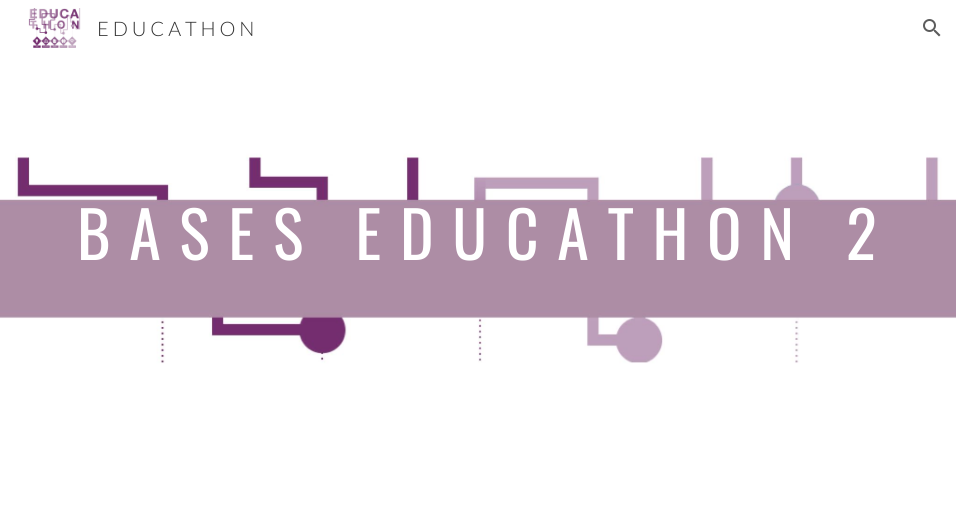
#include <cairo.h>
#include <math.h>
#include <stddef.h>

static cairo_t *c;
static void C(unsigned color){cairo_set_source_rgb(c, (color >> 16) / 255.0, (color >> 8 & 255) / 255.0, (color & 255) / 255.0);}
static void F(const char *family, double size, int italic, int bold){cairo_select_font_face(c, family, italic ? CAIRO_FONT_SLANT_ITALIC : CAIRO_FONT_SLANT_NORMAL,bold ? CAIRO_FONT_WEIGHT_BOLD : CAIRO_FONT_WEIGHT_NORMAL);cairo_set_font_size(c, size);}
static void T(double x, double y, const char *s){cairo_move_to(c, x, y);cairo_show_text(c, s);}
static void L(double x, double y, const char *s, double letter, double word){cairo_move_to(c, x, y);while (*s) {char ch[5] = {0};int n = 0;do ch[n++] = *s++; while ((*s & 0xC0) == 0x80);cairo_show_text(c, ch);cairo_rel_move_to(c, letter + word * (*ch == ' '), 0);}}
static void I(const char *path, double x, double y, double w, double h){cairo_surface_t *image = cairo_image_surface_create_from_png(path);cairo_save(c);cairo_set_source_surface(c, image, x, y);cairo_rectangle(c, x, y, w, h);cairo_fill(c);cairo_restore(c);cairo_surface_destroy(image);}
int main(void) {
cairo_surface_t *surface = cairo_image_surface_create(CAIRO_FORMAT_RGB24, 956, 530);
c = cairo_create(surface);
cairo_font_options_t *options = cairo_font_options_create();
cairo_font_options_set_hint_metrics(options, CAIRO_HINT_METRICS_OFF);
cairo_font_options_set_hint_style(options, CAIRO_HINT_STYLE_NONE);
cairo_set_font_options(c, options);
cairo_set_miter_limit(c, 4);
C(0xffffff);
cairo_paint(c);
I("3.png",0,0,956,520);
I("1.png",28,8,53,40);
F("Lato Light",20,0,0);
C(0x333333);
T(97,36,"E D U C A T H O N");
I("2.png",923,19,18,18);
F("Oswald",64,0,0);
C(0xffffff);
L(77,260,"B A S E S   E D U C A T H O N   2",2,0);
cairo_surface_write_to_png(surface, "o.png");
cairo_font_options_destroy(options);
cairo_destroy(c);
cairo_surface_destroy(surface);
return 0;
}
